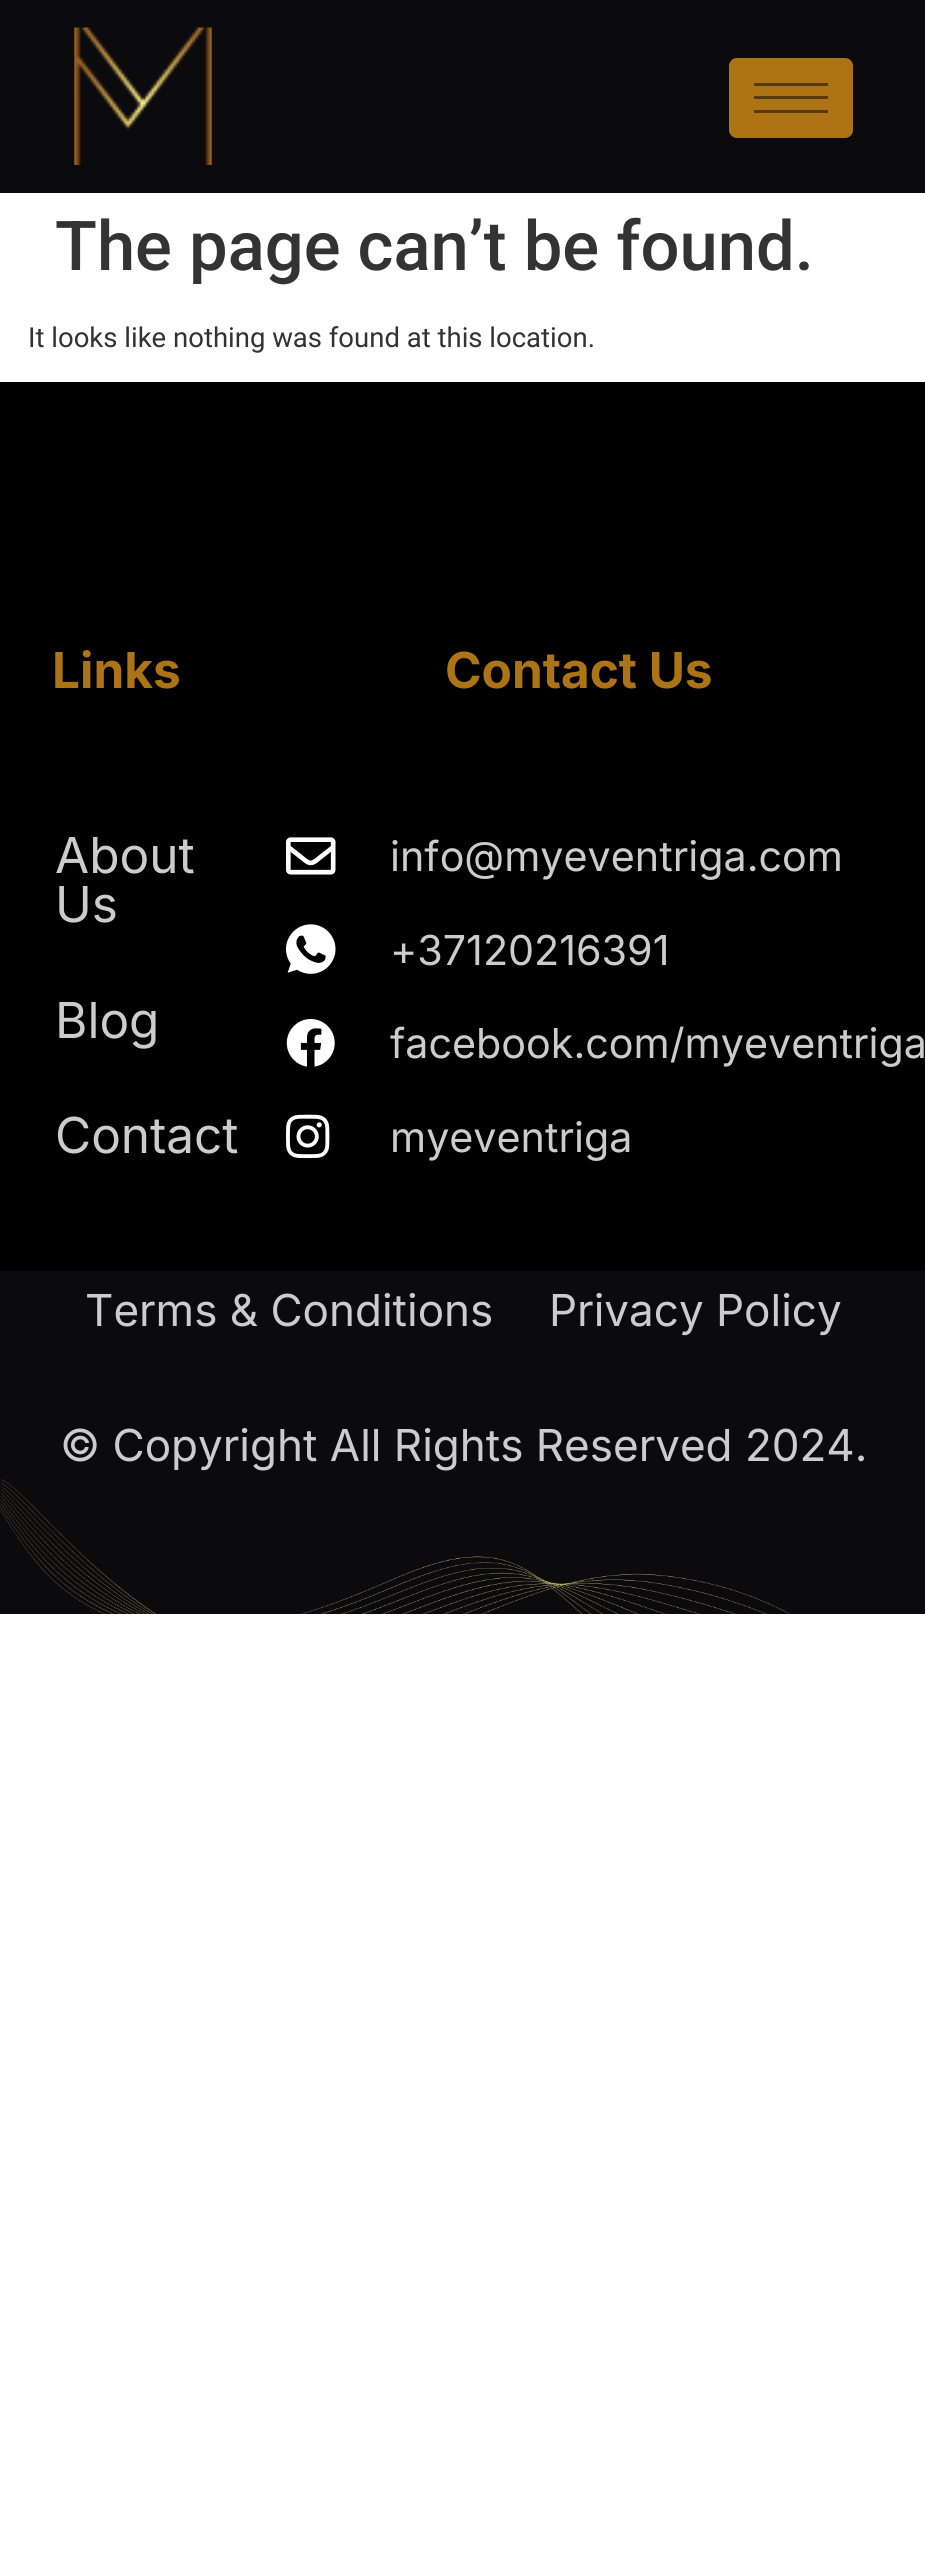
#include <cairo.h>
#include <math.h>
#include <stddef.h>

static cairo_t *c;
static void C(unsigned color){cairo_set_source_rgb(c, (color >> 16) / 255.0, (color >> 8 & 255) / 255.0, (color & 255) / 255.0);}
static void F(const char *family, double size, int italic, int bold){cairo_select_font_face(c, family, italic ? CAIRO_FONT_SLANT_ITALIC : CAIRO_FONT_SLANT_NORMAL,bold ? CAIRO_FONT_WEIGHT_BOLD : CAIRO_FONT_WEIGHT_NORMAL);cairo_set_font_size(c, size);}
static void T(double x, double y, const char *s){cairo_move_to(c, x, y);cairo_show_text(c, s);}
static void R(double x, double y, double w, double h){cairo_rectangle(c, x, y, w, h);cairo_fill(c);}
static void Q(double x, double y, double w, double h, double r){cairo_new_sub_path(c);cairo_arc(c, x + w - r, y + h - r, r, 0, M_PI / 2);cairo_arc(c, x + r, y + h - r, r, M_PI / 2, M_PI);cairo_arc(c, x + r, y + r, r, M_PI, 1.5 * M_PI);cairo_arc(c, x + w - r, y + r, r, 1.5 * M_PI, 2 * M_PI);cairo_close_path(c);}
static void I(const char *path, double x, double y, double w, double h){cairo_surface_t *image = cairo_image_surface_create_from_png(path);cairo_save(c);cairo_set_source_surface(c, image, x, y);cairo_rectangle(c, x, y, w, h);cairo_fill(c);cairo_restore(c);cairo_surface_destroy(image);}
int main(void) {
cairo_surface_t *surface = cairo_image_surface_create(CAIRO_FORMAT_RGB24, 925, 2570);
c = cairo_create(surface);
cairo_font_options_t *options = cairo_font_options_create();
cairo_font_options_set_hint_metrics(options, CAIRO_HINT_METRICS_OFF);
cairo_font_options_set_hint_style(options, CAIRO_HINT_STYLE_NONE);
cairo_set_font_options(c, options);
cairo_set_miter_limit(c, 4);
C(0xffffff);
cairo_paint(c);
C(0x0b0b0d);
R(0,0,925,193);
I("1.png",74,27,138,138);
C(0xad7416);
Q(730.5,59.5,121,77,6.5);
cairo_fill_preserve(c);
cairo_set_line_width(c,3);
cairo_stroke(c);
C(0x573a0b);
R(754,83,74,3);
R(754,96,74,3);
R(754,110,74,3);
F("Roboto Medium",68.75,0,0);
C(0x333333);
T(55,270,"The page can’t be found.");
F("Roboto",27.5,0,0);
T(28,347,"It looks like nothing was found at this location.");
C(0x000000);
R(0,382,925,889);
F("Inter",49.5,0,1);
C(0xad7416);
T(52,688,"Links");
F("Inter",49.5,0,0);
C(0xcccccc);
T(55,873,"About");
T(55,922,"Us");
T(55,1038,"Blog");
T(55,1153,"Contact");
F("Inter",49.5,0,1);
C(0xad7416);
T(445,688,"Contact Us");
I("2.png",286,837,50,38);
F("Inter",41.25,0,0);
C(0xcccccc);
T(390,871,"info@myeventriga.com");
I("3.png",286,924,50,50);
T(390,965,"+37120216391");
I("4.png",286,1019,49,48);
T(390,1058,"facebook.com/myeventriga");
I("5.png",286,1114,44,45);
T(390,1152,"myeventriga");
C(0x0b0b0d);
R(0,1271,925,343);
F("Inter",44,0,0);
C(0xcccccc);
T(85,1326,"Terms & Conditions");
T(549,1326,"Privacy Policy");
T(60,1461,"© Copyright All Rights Reserved 2024.");
I("6.png",0,1479,791,136);
cairo_surface_write_to_png(surface, "o.png");
cairo_font_options_destroy(options);
cairo_destroy(c);
cairo_surface_destroy(surface);
return 0;
}
